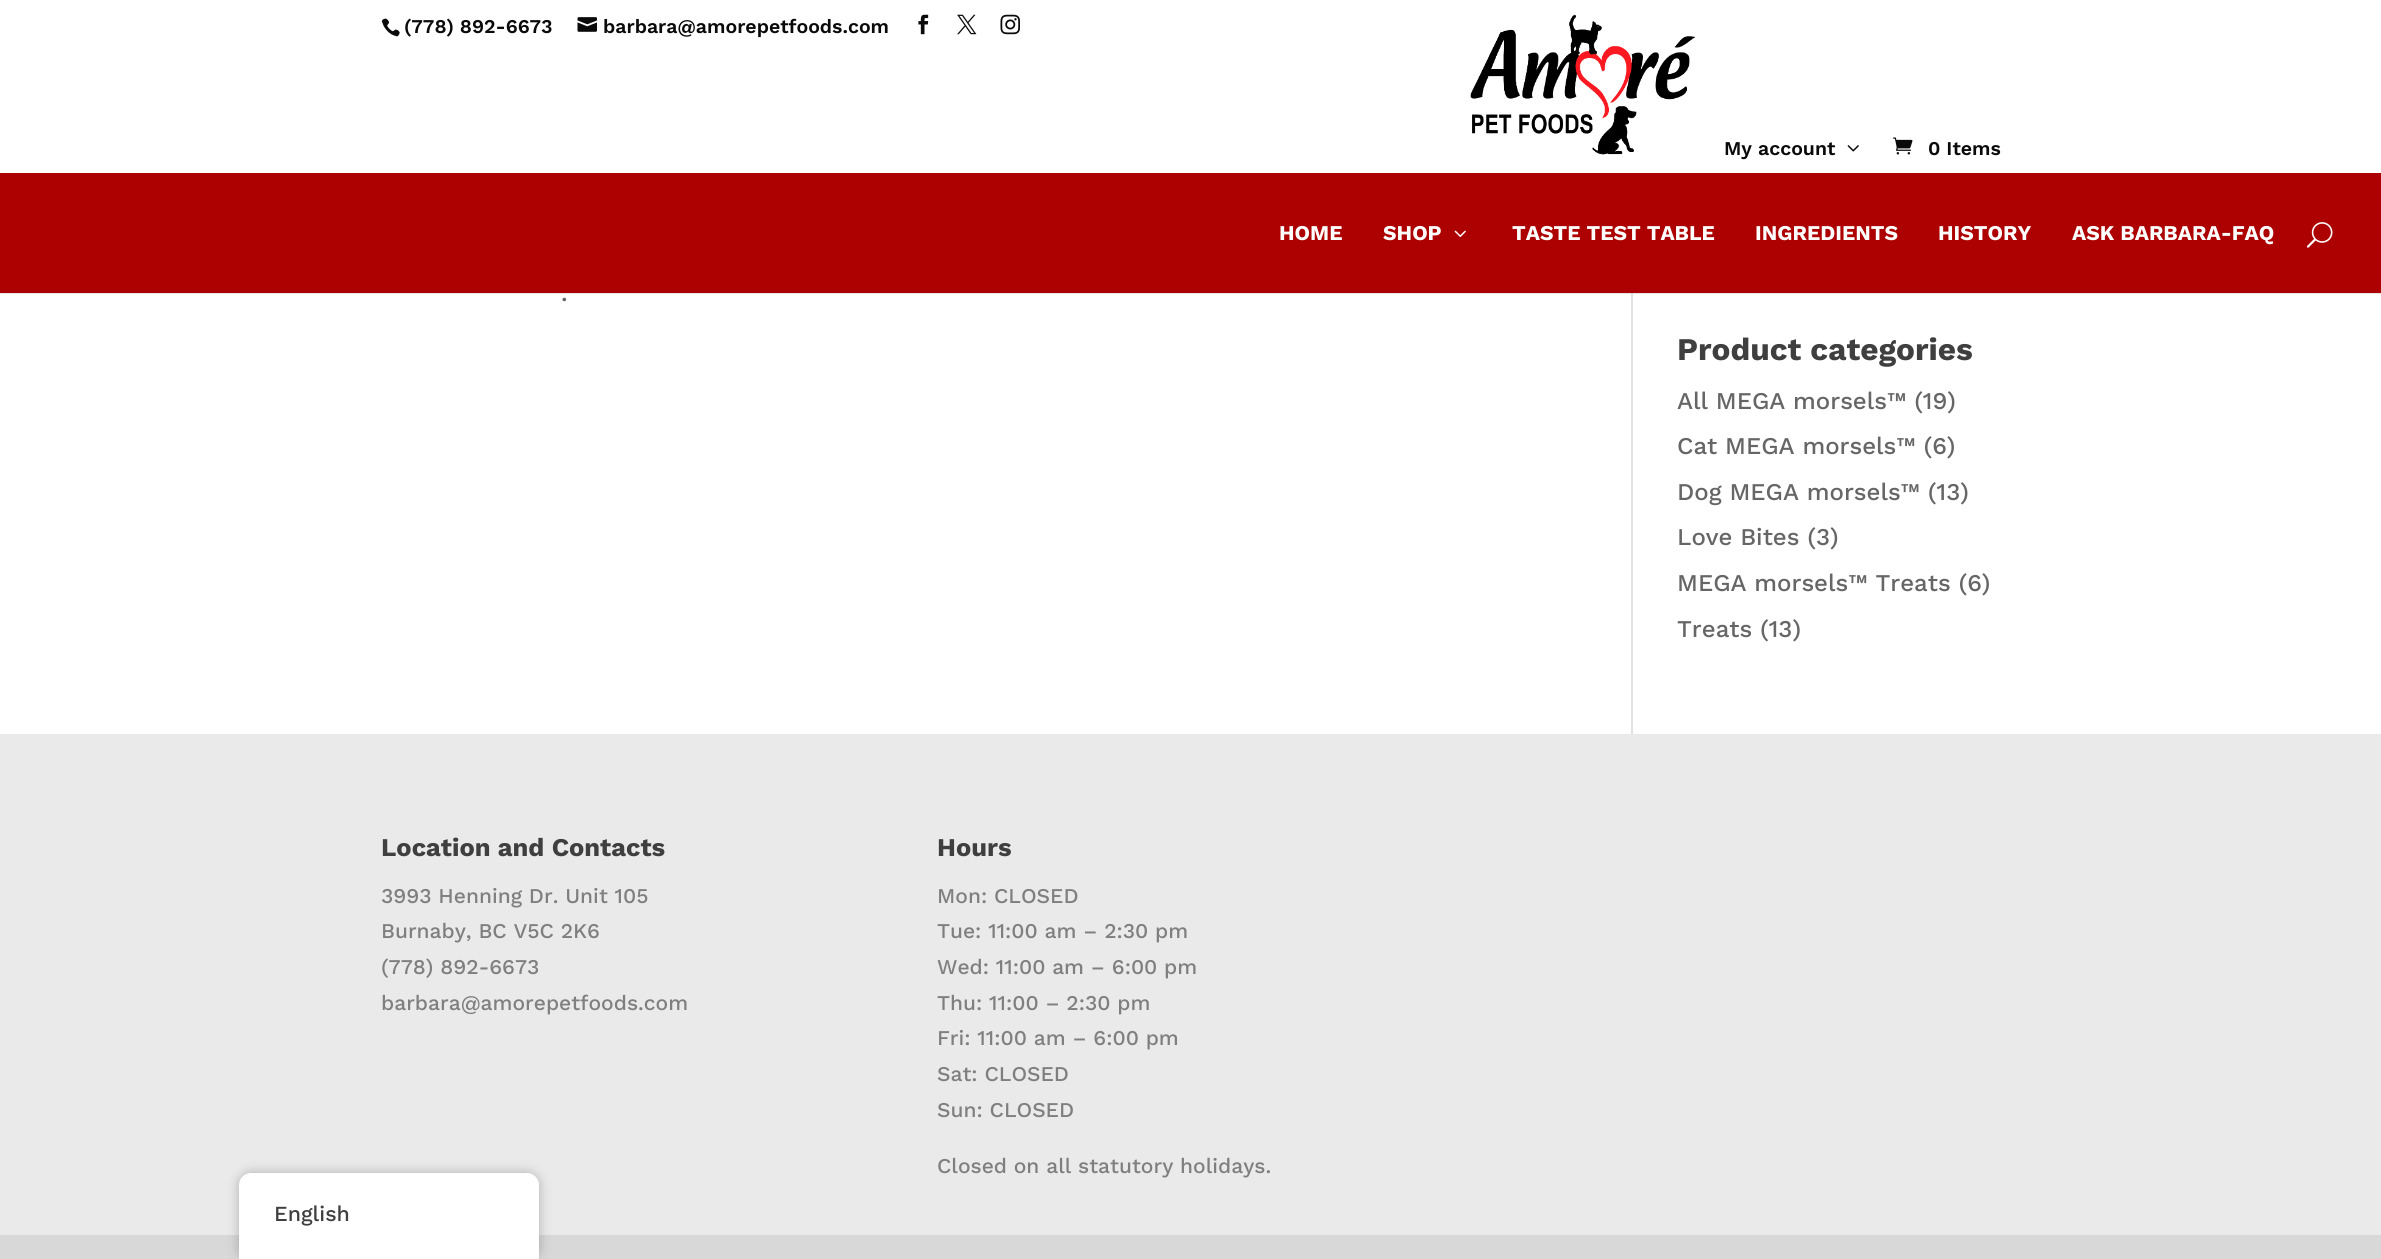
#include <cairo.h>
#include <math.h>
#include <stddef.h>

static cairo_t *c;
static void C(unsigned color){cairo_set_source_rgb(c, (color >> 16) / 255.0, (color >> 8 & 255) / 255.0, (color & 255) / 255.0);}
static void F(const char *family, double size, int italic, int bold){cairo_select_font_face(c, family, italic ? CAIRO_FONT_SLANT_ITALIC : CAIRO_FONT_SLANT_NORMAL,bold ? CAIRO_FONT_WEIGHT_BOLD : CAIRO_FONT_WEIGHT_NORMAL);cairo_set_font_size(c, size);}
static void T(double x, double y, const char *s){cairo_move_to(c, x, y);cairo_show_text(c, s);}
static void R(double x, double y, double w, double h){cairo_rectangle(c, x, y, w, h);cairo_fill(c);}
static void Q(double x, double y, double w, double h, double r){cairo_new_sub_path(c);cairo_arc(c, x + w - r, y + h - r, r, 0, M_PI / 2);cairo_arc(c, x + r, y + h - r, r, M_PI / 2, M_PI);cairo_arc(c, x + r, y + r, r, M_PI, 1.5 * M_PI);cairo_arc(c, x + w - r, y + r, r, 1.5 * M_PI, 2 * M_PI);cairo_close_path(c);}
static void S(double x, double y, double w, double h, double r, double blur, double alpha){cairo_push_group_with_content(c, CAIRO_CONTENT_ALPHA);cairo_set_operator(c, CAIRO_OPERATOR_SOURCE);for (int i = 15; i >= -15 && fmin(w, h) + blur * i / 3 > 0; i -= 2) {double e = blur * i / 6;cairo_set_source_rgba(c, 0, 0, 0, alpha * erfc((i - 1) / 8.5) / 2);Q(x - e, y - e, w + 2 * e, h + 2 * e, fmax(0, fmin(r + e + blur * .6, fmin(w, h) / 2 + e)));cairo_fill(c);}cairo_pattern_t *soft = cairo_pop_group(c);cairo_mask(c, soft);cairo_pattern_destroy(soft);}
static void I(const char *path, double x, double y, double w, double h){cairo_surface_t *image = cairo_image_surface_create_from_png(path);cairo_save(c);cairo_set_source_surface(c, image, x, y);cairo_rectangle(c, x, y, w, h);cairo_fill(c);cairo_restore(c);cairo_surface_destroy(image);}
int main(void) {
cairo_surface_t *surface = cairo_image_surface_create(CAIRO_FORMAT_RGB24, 2381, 1259);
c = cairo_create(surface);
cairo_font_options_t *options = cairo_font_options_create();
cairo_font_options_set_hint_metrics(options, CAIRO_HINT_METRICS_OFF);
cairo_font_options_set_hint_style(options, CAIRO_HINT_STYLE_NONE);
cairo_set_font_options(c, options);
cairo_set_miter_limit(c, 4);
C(0xffffff);
cairo_paint(c);
I("1.png",381,18,19,19);
F("Work Sans SemiBold",19.5,0,0);
C(0x0a0a0a);
T(404,33,"(778) 892-6673");
I("2.png",577,17,20,15);
T(603,33,"barbara@amorepetfoods.com");
I("3.png",918,14,11,21);
I("4.png",957,14,20,21);
I("5.png",1000,14,20,21);
I("6.png",1470,14,226,141);
T(1724,155,"My account");
I("7.png",1847,145,12,7);
I("8.png",1893,137,20,18);
T(1928,155,"0 Items");
C(0xe2e2e2);
R(1631,293,2,441);
cairo_set_source_rgba(c,0,0,0,0.1);
R(0,293,2381,1);
C(0xad0000);
R(0,173,2381,120);
F("Work Sans",21,0,1);
C(0xffffff);
T(1279,240,"HOME");
T(1383,240,"SHOP");
I("9.png",1454,230,12,7);
T(1512,240,"TASTE TEST TABLE");
T(1755,240,"INGREDIENTS");
T(1938,240,"HISTORY");
T(2072,240,"ASK BARBARA-FAQ");
I("10.png",2306,222,27,26);
F("Work Sans Medium",24,0,0);
C(0x666666);
T(561,301,".");
F("Work Sans",31.5,0,1);
C(0x3f3f3f);
T(1677,360,"Product categories");
F("Work Sans Medium",24,0,0);
C(0x666666);
T(1677,409,"All MEGA morsels™ (19)");
T(1677,454,"Cat MEGA morsels™ (6)");
T(1677,500,"Dog MEGA morsels™ (13)");
T(1677,545,"Love Bites (3)");
T(1677,591,"MEGA morsels™ Treats (6)");
T(1677,637,"Treats (13)");
C(0xeaeaea);
R(0,734,2381,501);
F("Work Sans",25.5,0,1);
C(0x3f3f3f);
T(381,856,"Location and Contacts");
F("Work Sans Medium",21,0,0);
C(0x7f7f7f);
T(381,903,"3993 Henning Dr. Unit 105");
T(381,938,"Burnaby, BC V5C 2K6");
T(381,974,"(778) 892-6673");
T(381,1010,"barbara@amorepetfoods.com");
F("Work Sans",25.5,0,1);
C(0x3f3f3f);
T(937,856,"Hours");
F("Work Sans Medium",21,0,0);
C(0x7f7f7f);
T(937,903,"Mon: CLOSED");
T(937,938,"Tue: 11:00 am – 2:30 pm");
T(937,974,"Wed: 11:00 am – 6:00 pm");
T(937,1010,"Thu: 11:00 – 2:30 pm");
T(937,1045,"Fri: 11:00 am – 6:00 pm");
T(937,1081,"Sat: CLOSED");
T(937,1117,"Sun: CLOSED");
T(937,1173,"Closed on all statutory holidays.");
C(0xd8d8d8);
R(0,1235,2381,24);
C(0x000000);
S(239,1173,300,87,12,6,.25);
C(0xffffff);
cairo_new_path(c);
cairo_move_to(c,251,1173);
cairo_line_to(c,527,1173);
cairo_curve_to(c,533.5,1173,539,1178.5,539,1185);
cairo_line_to(c,539,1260);
cairo_line_to(c,239,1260);
cairo_line_to(c,239,1185);
cairo_curve_to(c,239,1178.5,244.5,1173,251,1173);
cairo_close_path(c);
cairo_fill(c);
F("Work Sans Medium",21.5,0,0);
C(0x3f3f3f);
T(274,1221,"English");
cairo_surface_write_to_png(surface, "o.png");
cairo_font_options_destroy(options);
cairo_destroy(c);
cairo_surface_destroy(surface);
return 0;
}
